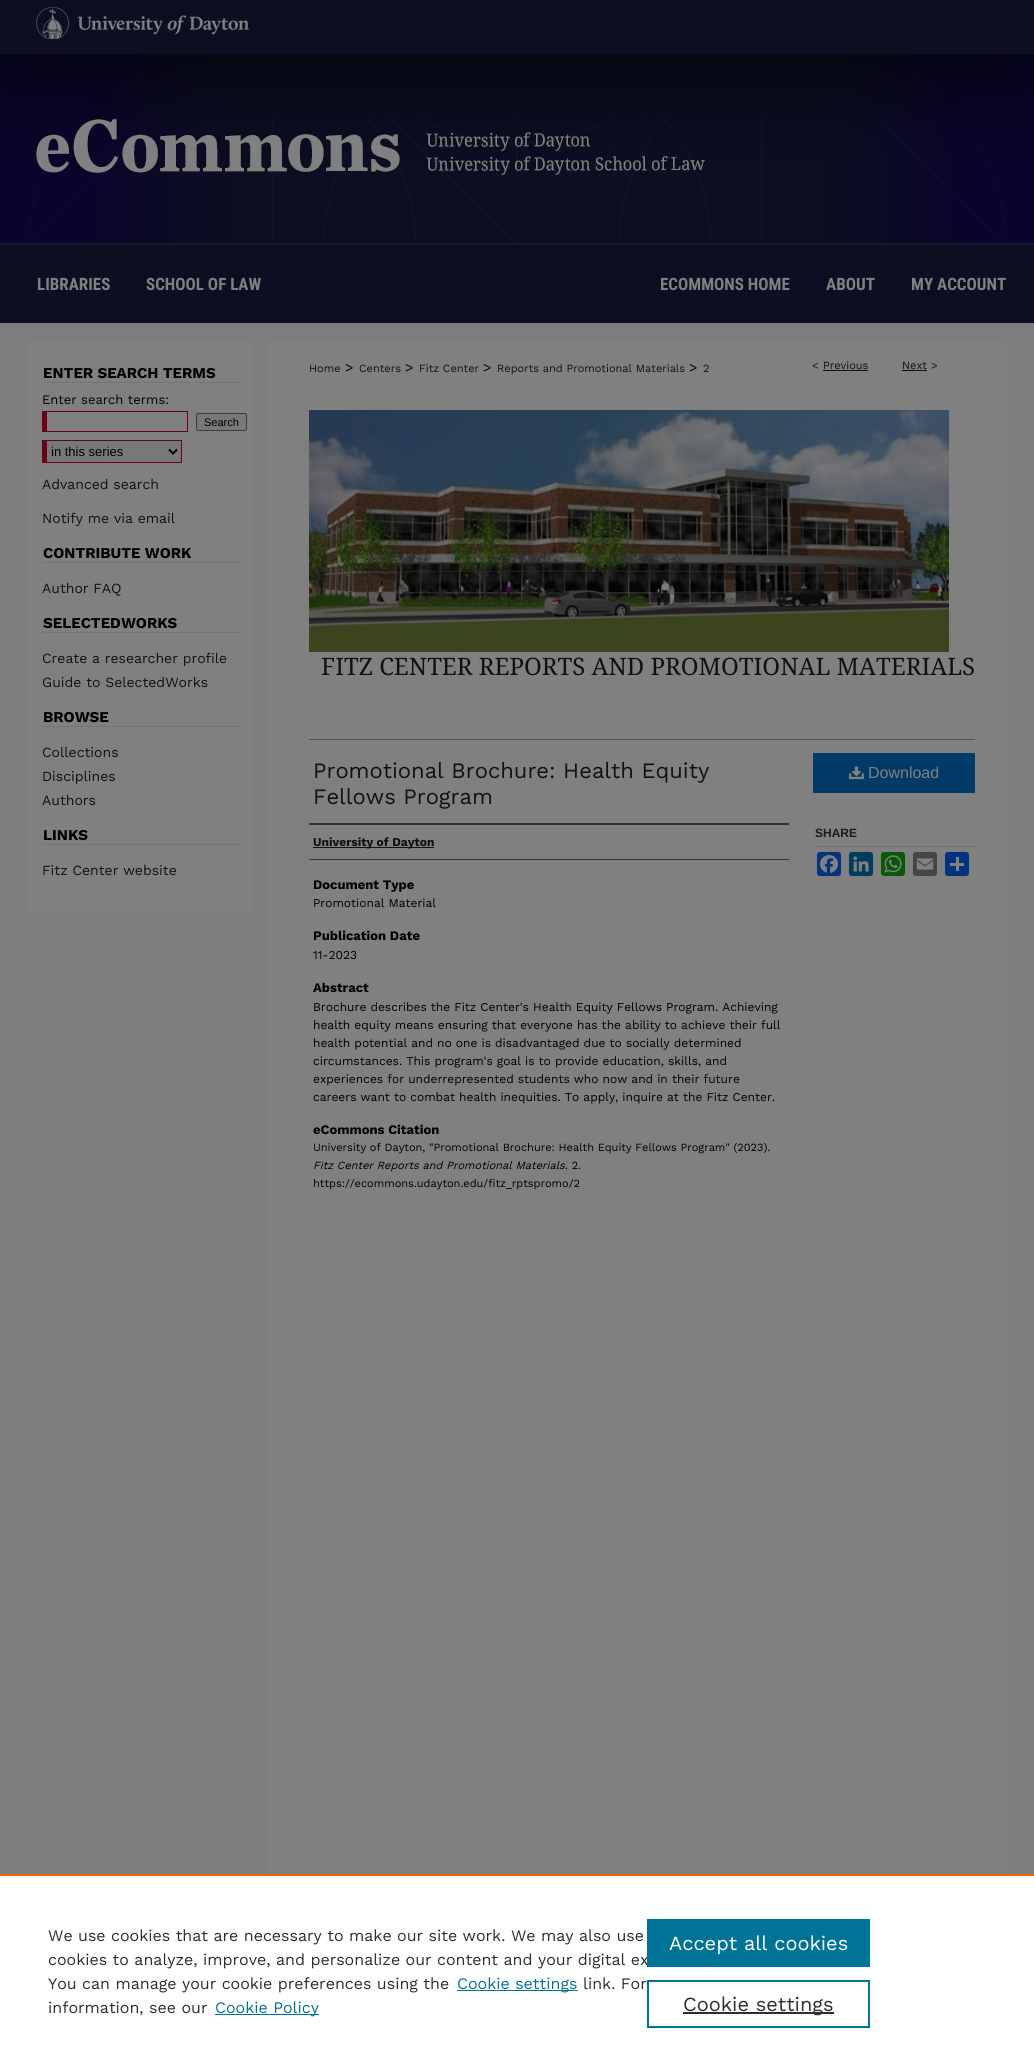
#include <cairo.h>
#include <math.h>
#include <stddef.h>

static cairo_t *c;
static void C(unsigned color){cairo_set_source_rgb(c, (color >> 16) / 255.0, (color >> 8 & 255) / 255.0, (color & 255) / 255.0);}
static void F(const char *family, double size, int italic, int bold){cairo_select_font_face(c, family, italic ? CAIRO_FONT_SLANT_ITALIC : CAIRO_FONT_SLANT_NORMAL,bold ? CAIRO_FONT_WEIGHT_BOLD : CAIRO_FONT_WEIGHT_NORMAL);cairo_set_font_size(c, size);}
static void T(double x, double y, const char *s){cairo_move_to(c, x, y);cairo_show_text(c, s);}
static void R(double x, double y, double w, double h){cairo_rectangle(c, x, y, w, h);cairo_fill(c);}
static void Q(double x, double y, double w, double h, double r){cairo_new_sub_path(c);cairo_arc(c, x + w - r, y + h - r, r, 0, M_PI / 2);cairo_arc(c, x + r, y + h - r, r, M_PI / 2, M_PI);cairo_arc(c, x + r, y + r, r, M_PI, 1.5 * M_PI);cairo_arc(c, x + w - r, y + r, r, 1.5 * M_PI, 2 * M_PI);cairo_close_path(c);}
static void I(const char *path, double x, double y, double w, double h){cairo_surface_t *image = cairo_image_surface_create_from_png(path);cairo_save(c);cairo_set_source_surface(c, image, x, y);cairo_rectangle(c, x, y, w, h);cairo_fill(c);cairo_restore(c);cairo_surface_destroy(image);}
int main(void) {
cairo_surface_t *surface = cairo_image_surface_create(CAIRO_FORMAT_RGB24, 1034, 2068);
c = cairo_create(surface);
cairo_font_options_t *options = cairo_font_options_create();
cairo_font_options_set_hint_metrics(options, CAIRO_HINT_METRICS_OFF);
cairo_font_options_set_hint_style(options, CAIRO_HINT_STYLE_NONE);
cairo_set_font_options(c, options);
cairo_set_miter_limit(c, 4);
C(0x7d7d7d);
cairo_paint(c);
I("1.png",0,0,1034,323);
I("2.png",27,7,980,238);
F("Roboto Condensed",17,0,1);
C(0x808080);
T(37,290,"LIBRARIES");
T(146,290,"SCHOOL OF LAW");
T(660,290,"ECOMMONS HOME");
T(826,290,"ABOUT");
T(911,290,"MY ACCOUNT");
R(267,342,740,1532);
R(27,342,227,570);
C(0x757575);
R(43,382,200,1);
F("Work Sans",15,0,1);
C(0x000000);
T(43,378,"ENTER SEARCH TERMS");
F("Work Sans",13,0,0);
T(42,404,"Enter search terms:");
C(0x6c001b);
R(42,411,146,1);
R(187,411,1,21);
R(42,431,146,1);
R(42,411,5,21);
C(0x787878);
Q(196.5,413.5,50,17,1.5);
cairo_fill_preserve(c);
C(0x3b3b3b);
cairo_set_line_width(c,1);
cairo_stroke(c);
F("Liberation Sans",11,0,0);
C(0x000000);
T(204,426,"Search");
C(0x787878);
R(47,441,134,21);
C(0x6c001b);
R(42,440,140,1);
R(181,440,1,23);
R(42,462,140,1);
R(42,440,5,23);
cairo_new_path(c);
cairo_move_to(c,169,449.5);
cairo_line_to(c,173,453.5);
cairo_line_to(c,177,449.5);
C(0x000000);
cairo_set_line_width(c,2);
cairo_stroke(c);
F("Liberation Sans",13,0,0);
T(51,456,"in this series");
F("Work Sans",14,0,0);
C(0x111111);
T(42,489,"Advanced search");
T(42,523,"Notify me via email");
C(0x757575);
R(43,562,200,1);
F("Work Sans",15,0,1);
C(0x000000);
T(43,558,"CONTRIBUTE WORK");
F("Work Sans",14,0,0);
C(0x111111);
T(42,593,"Author FAQ");
C(0x757575);
R(43,632,200,1);
F("Work Sans",15,0,1);
C(0x000000);
T(43,628,"SELECTEDWORKS");
F("Work Sans",14,0,0);
C(0x111111);
T(42,663,"Create a researcher profile");
T(42,687,"Guide to SelectedWorks");
C(0x757575);
R(43,726,200,1);
F("Work Sans",15,0,1);
C(0x000000);
T(43,722,"BROWSE");
F("Work Sans",14,0,0);
C(0x111111);
T(42,757,"Collections");
T(42,781,"Disciplines");
T(42,805,"Authors");
C(0x757575);
R(43,844,200,1);
F("Work Sans",15,0,1);
C(0x000000);
T(43,840,"LINKS");
F("Work Sans",14,0,0);
C(0x111111);
T(42,875,"Fitz Center website");
F("Work Sans",11,0,0);
T(309,372,"Home");
F("Work Sans",14,0,0);
C(0x000000);
T(345,372,">");
F("Work Sans",11,0,0);
C(0x111111);
T(359,372,"Centers");
F("Work Sans",14,0,0);
C(0x000000);
T(405,372,">");
F("Work Sans",11,0,0);
C(0x111111);
T(419,372,"Fitz Center");
F("Work Sans",14,0,0);
C(0x000000);
T(483,372,">");
F("Work Sans",11,0,0);
C(0x111111);
T(497,372,"Reports and Promotional Materials");
F("Work Sans",14,0,0);
C(0x000000);
T(689,372,">");
F("Work Sans",11,0,0);
C(0x111111);
T(703,372,"2");
T(812,369,"<");
T(823,369,"Previous");
C(0x121212);
R(823,370,45,1);
C(0x111111);
T(902,369,"Next");
C(0x121212);
R(902,370,25,1);
C(0x111111);
T(931,369,">");
I("3.png",309,410,640,242);
F("Noto Serif",24,0,0);
T(321,675,"FITZ CENTER REPORTS AND PROMOTIONAL MATERIALS");
C(0x555555);
R(309,739,666,1);
F("Work Sans",22,0,0);
C(0x111111);
T(313,778,"Promotional Brochure: Health Equity");
T(313,804,"Fellows Program");
C(0x333333);
R(309,823,480,2);
R(309,859,480,1);
C(0x121212);
R(313,847,121,1);
F("Work Sans",12,0,1);
C(0x111111);
T(313,846,"University of Dayton");
F("Work Sans",13,0,1);
C(0x000000);
T(313,889,"Document Type");
F("Work Sans",12,0,0);
T(313,907,"Promotional Material");
F("Work Sans",13,0,1);
T(313,940,"Publication Date");
F("Work Sans",12,0,0);
T(313,959,"11-2023");
F("Work Sans",13,0,1);
T(313,992,"Abstract");
F("Work Sans",12,0,0);
T(313,1011,"Brochure describes the Fitz Center's Health Equity Fellows Program. Achieving");
T(313,1029,"health equity means ensuring that everyone has the ability to achieve their full");
T(313,1047,"health potential and no one is disadvantaged due to socially determined");
T(313,1065,"circumstances. This program's goal is to provide education, skills, and");
T(313,1083,"experiences for underrepresented students who now and in their future");
T(313,1101,"careers want to combat health inequities. To apply, inquire at the Fitz Center.");
F("Work Sans",13,0,1);
T(313,1134,"eCommons Citation");
F("Work Sans",11,0,0);
T(313,1151,"University of Dayton, \"Promotional Brochure: Health Equity Fellows Program\" (2023).");
F("Work Sans",11,1,0);
T(313,1169,"Fitz Center Reports and Promotional Materials");
F("Work Sans",11,0,0);
T(565,1169,". 2.");
T(313,1187,"https://ecommons.udayton.edu/fitz_rptspromo/2");
C(0x003a66);
R(813,753,162,40);
I("4.png",849,766,15,14);
F("Liberation Sans",16,0,0);
C(0x808080);
T(868,778,"Download");
C(0x6f6f6f);
R(815,846,160,1);
F("Liberation Sans",12,0,1);
C(0x1a1a1a);
T(815,837,"SHARE");
C(0x043380);
Q(817,852,24,24,3);
cairo_fill(c);
I("5.png",820,855,18,18);
C(0x003e5b);
Q(849,852,24,24,3);
cairo_fill(c);
I("6.png",853,856,16,16);
C(0x095805);
Q(881,852,24,24,3);
cairo_fill(c);
I("7.png",884,855,18,18);
C(0x444548);
Q(913,852,24,24,3);
cairo_fill(c);
I("8.png",916,858,18,12);
C(0x013380);
Q(945,852,24,24,3);
cairo_fill(c);
C(0x808080);
R(956,857,3,14);
R(950,863,14,3);
C(0xffffff);
R(0,1876,1034,192);
C(0xeb6500);
R(0,1874,1034,2);
F("Work Sans",16,0,0);
C(0x2e2e2e);
T(48,1941,"We use cookies that are necessary to make our site work. We may also use");
T(48,1965,"cookies to analyze, improve, and personalize our content and your digital ex");
T(48,1989,"You can manage your cookie preferences using the");
C(0x007398);
R(457,1990,121,1);
T(457,1989,"Cookie settings");
C(0x2e2e2e);
T(583,1989,"link. For");
T(48,2013,"information, see our");
C(0x007398);
R(215,2014,104,1);
T(215,2013,"Cookie Policy");
R(647,1919,223,48);
F("Work Sans",20,0,0);
C(0xffffff);
T(669,1950,"Accept all cookies");
cairo_rectangle(c,648,1981,221,46);
C(0x007398);
cairo_stroke(c);
C(0x2e2e2e);
R(683,2012,151,2);
T(683,2011,"Cookie settings");
cairo_surface_write_to_png(surface, "o.png");
cairo_font_options_destroy(options);
cairo_destroy(c);
cairo_surface_destroy(surface);
return 0;
}
